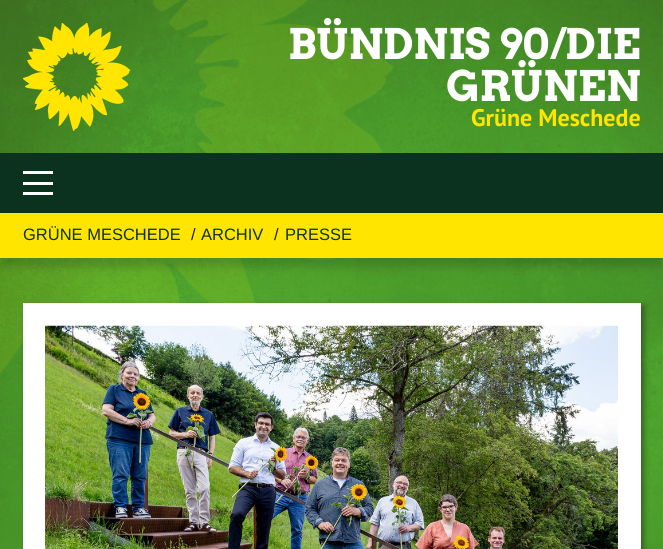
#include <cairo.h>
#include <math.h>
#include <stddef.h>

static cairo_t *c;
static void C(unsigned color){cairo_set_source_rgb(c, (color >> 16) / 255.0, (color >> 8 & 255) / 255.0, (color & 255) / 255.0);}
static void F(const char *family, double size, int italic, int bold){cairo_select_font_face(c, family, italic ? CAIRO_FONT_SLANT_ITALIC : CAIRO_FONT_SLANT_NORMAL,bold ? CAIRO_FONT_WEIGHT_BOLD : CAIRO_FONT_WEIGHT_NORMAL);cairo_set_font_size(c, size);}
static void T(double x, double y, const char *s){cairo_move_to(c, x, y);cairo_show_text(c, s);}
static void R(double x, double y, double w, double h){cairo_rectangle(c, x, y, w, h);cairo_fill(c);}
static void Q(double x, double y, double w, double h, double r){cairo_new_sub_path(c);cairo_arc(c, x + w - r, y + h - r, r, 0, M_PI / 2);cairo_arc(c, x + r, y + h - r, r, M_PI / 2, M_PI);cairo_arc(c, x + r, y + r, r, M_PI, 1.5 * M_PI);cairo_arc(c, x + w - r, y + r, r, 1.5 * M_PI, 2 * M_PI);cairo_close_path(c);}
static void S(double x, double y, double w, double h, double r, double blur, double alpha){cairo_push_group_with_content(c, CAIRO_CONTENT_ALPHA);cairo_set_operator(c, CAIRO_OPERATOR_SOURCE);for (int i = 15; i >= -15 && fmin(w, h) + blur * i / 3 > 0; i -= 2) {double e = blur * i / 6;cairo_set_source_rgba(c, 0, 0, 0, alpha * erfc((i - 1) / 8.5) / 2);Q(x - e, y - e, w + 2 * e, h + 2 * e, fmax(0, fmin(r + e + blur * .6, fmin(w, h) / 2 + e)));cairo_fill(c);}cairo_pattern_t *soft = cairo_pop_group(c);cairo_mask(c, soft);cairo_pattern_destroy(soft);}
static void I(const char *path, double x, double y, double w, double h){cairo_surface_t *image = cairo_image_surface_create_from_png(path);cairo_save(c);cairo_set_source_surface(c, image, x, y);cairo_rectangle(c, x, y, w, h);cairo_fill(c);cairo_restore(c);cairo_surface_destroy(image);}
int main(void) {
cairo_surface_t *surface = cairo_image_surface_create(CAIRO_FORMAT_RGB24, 663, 549);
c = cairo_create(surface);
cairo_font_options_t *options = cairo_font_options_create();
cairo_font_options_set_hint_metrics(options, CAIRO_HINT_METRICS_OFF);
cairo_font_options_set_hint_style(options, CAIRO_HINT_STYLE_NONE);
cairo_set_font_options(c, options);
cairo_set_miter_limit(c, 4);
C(0xffffff);
cairo_paint(c);
I("1.png",0,0,663,549);
I("2.png",23,23,108,108);
F("Arvo",42,0,1);
C(0xffffff);
T(288,59,"BÜNDNIS 90/DIE");
T(446,101,"GRÜNEN");
F("PT Sans",24,0,1);
C(0xffe500);
T(471,126,"Grüne Meschede");
C(0x201d1b);
S(0,222,663,45,0,4.5,.2);
C(0x0a321e);
R(0,153,663,60);
C(0xffffff);
R(23,192,30,3);
R(23,182,30,3);
R(23,171,30,3);
C(0xffe500);
R(0,213,663,45);
F("Liberation Sans",16.5,0,0);
C(0x0a321e);
T(23,240,"GRÜNE MESCHEDE");
C(0x201d1b);
T(191,240,"/");
C(0x0a321e);
T(201,240,"ARCHIV");
C(0x201d1b);
T(274,240,"/");
C(0x0a321e);
T(285,240,"PRESSE");
C(0x201d1b);
S(26,306,618,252,0,3,.5);
C(0xffffff);
R(23,303,618,246);
I("3.png",45,325,573,224);
cairo_surface_write_to_png(surface, "o.png");
cairo_font_options_destroy(options);
cairo_destroy(c);
cairo_surface_destroy(surface);
return 0;
}
